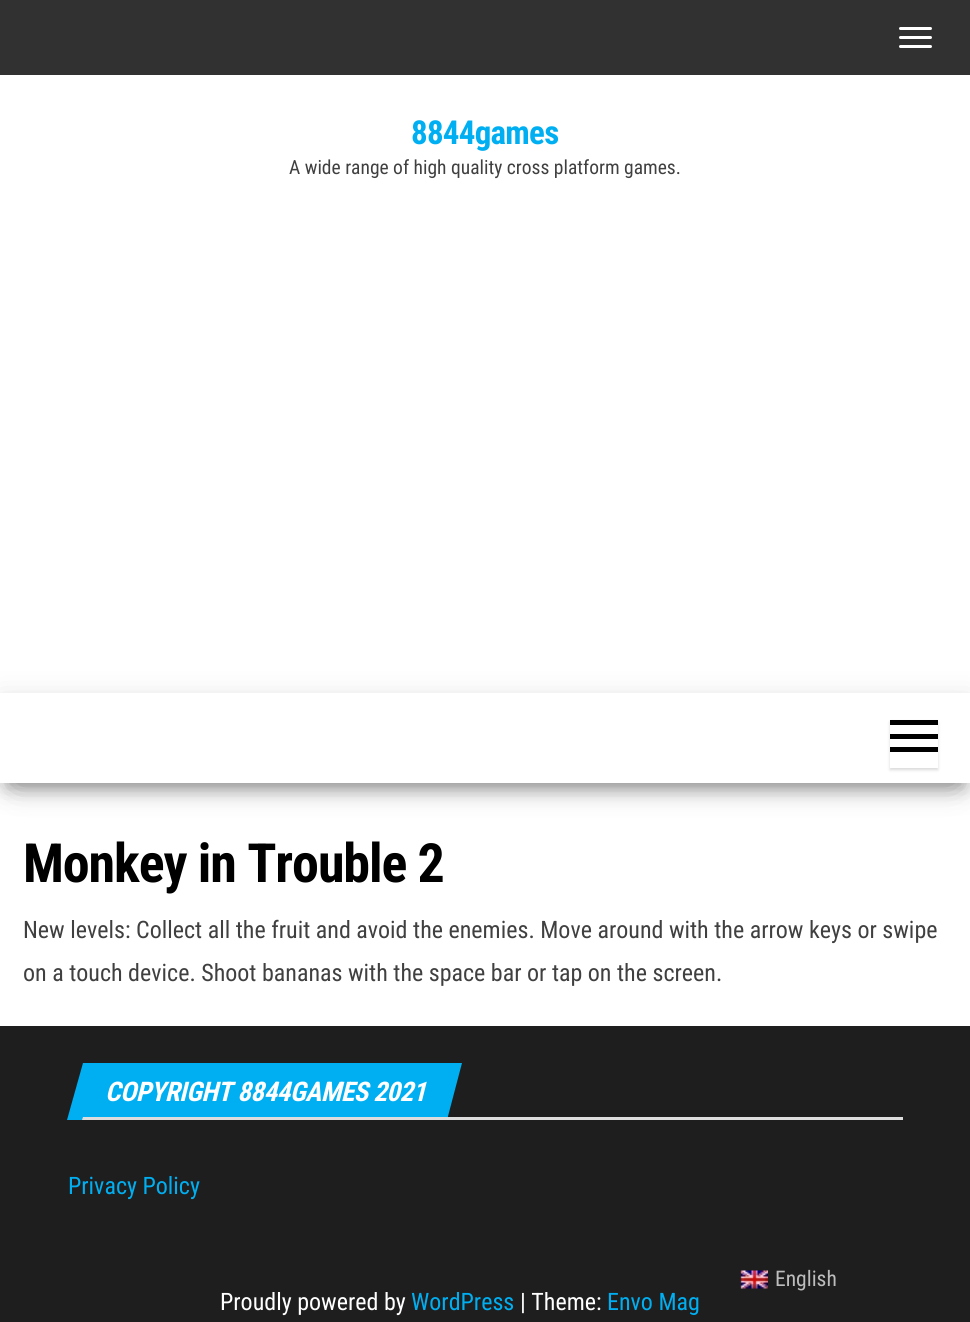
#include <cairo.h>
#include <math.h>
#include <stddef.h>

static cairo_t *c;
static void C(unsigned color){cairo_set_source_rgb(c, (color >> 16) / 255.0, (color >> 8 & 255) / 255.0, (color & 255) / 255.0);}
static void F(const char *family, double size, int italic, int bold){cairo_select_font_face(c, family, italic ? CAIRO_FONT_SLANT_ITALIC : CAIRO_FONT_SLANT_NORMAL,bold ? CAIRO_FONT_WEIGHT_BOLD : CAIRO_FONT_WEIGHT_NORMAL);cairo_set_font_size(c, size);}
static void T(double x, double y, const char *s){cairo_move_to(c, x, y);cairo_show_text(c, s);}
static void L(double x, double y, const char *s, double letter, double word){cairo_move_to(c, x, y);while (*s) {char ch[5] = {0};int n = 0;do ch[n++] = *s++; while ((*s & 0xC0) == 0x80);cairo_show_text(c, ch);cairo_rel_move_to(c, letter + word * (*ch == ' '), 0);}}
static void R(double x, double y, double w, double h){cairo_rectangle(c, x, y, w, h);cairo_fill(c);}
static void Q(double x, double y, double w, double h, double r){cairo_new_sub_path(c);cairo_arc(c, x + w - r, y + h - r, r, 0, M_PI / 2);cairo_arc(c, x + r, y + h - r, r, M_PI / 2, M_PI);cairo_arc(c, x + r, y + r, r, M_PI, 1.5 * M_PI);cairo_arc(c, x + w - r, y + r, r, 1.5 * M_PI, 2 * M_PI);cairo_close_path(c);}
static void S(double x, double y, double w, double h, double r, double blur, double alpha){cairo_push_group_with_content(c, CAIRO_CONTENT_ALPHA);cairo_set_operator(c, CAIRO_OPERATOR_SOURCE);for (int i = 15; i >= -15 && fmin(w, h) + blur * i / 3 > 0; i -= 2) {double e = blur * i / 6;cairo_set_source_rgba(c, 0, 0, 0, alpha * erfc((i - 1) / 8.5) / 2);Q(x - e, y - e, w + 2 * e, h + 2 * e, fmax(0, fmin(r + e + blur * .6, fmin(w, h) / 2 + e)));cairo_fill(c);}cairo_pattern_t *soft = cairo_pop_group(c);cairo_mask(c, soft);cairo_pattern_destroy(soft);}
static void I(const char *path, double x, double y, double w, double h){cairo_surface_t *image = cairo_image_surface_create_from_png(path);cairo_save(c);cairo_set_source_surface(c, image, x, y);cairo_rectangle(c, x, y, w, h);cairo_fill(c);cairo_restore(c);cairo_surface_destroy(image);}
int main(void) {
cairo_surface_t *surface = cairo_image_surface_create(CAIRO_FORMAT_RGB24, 970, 1322);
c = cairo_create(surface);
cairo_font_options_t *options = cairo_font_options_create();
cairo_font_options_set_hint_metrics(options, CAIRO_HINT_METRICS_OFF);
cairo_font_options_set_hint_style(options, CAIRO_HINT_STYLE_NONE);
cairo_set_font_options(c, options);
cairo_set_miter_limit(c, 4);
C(0xffffff);
cairo_paint(c);
C(0x313131);
R(0,0,970,75);
C(0xffffff);
Q(899,27,33,3,1.5);
cairo_fill(c);
Q(899,36,33,3,1.5);
cairo_fill(c);
Q(899,45,33,3,1.5);
cairo_fill(c);
F("Roboto Condensed",33,0,1);
C(0x00aff2);
L(411,144,"8844games",-.75,0);
F("Roboto Condensed",19.5,0,0);
C(0x404040);
T(289,174,"A wide range of high quality cross platform games.");
C(0x000000);
S(8,713,955,75,0,7.5,.2);
S(0,698,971,90,0,15,.12);
S(18,726,935,54,0,15,.42);
C(0xffffff);
R(0,693,970,90);
cairo_save(c);
cairo_set_fill_rule(c,CAIRO_FILL_RULE_EVEN_ODD);
cairo_new_path(c);
cairo_move_to(c,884,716);
cairo_line_to(c,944,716);
cairo_line_to(c,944,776);
cairo_line_to(c,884,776);
cairo_close_path(c);
cairo_move_to(c,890,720);
cairo_line_to(c,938,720);
cairo_line_to(c,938,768);
cairo_line_to(c,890,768);
cairo_close_path(c);
cairo_clip(c);
C(0x000000);
S(890,722,48,48,0,1.5,.15);
cairo_restore(c);
C(0x000000);
R(890,720,48,5);
R(890,734,48,5);
R(890,747,48,5);
F("Roboto Condensed",54,0,1);
L(23,882,"Monkey in Trouble 2",-1.1,0);
F("Roboto Condensed",24,0,0);
C(0x404040);
T(23,938,"New levels: Collect all the fruit and avoid the enemies. Move around with the arrow keys or swipe");
T(23,981,"on a touch device. Shoot bananas with the space bar or tap on the screen.");
C(0x1e1e1e);
R(0,1026,970,296);
C(0x00aff2);
cairo_new_path(c);
cairo_move_to(c,83,1063);
cairo_line_to(c,462,1063);
cairo_line_to(c,447,1120);
cairo_line_to(c,67,1120);
cairo_close_path(c);
cairo_fill(c);
F("Roboto Condensed",27,1,1);
C(0xffffff);
L(105,1101,"COPYRIGHT 8844GAMES 2021",-.5,0);
C(0xdddddd);
cairo_new_path(c);
cairo_move_to(c,83,1117);
cairo_line_to(c,903,1117);
cairo_line_to(c,903,1120);
cairo_line_to(c,82,1120);
cairo_close_path(c);
cairo_fill(c);
F("Roboto Condensed",24,0,0);
C(0x00aff2);
T(68,1194,"Privacy Policy");
I("1.png",740,1270,28,19);
F("Roboto Condensed",21.5,0,0);
C(0xbdbdbd);
T(775,1286,"English");
F("Roboto Condensed",24,0,0);
C(0xffffff);
T(220,1310,"Proudly powered by");
C(0x00aff2);
T(411,1310,"WordPress");
C(0xffffff);
T(520,1310,"| Theme:");
C(0x00aff2);
T(607,1310,"Envo Mag");
cairo_surface_write_to_png(surface, "o.png");
cairo_font_options_destroy(options);
cairo_destroy(c);
cairo_surface_destroy(surface);
return 0;
}
